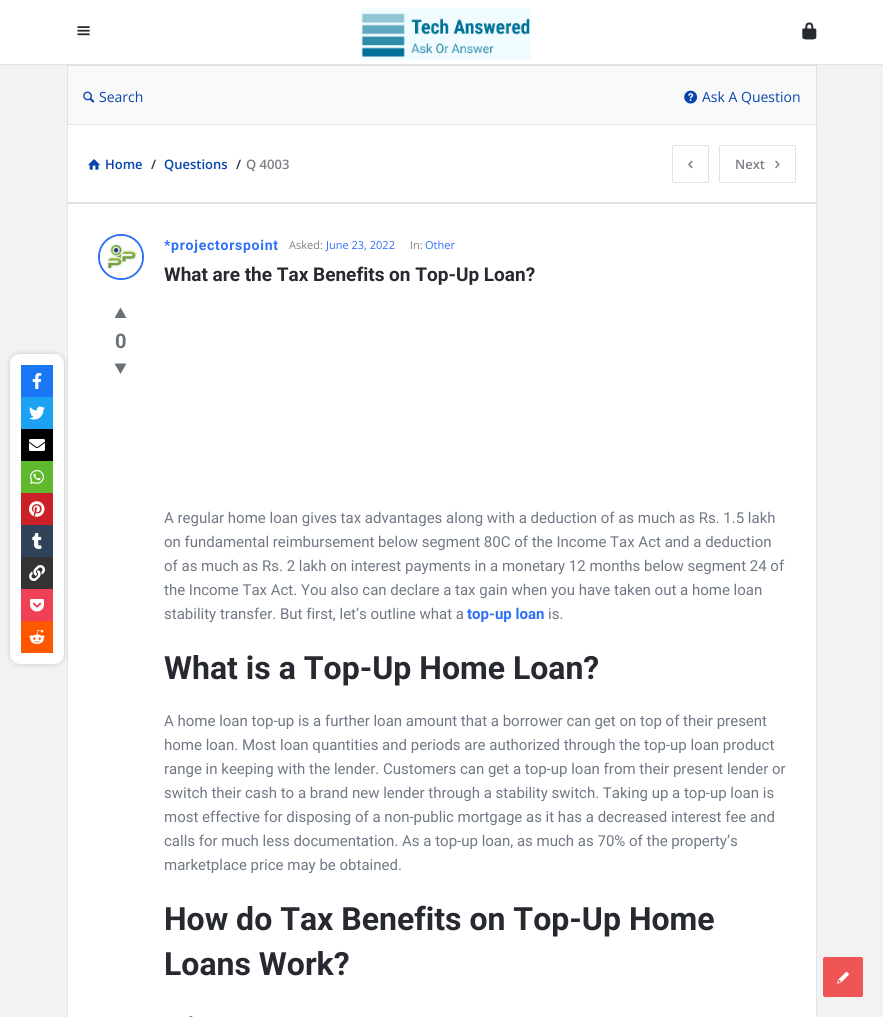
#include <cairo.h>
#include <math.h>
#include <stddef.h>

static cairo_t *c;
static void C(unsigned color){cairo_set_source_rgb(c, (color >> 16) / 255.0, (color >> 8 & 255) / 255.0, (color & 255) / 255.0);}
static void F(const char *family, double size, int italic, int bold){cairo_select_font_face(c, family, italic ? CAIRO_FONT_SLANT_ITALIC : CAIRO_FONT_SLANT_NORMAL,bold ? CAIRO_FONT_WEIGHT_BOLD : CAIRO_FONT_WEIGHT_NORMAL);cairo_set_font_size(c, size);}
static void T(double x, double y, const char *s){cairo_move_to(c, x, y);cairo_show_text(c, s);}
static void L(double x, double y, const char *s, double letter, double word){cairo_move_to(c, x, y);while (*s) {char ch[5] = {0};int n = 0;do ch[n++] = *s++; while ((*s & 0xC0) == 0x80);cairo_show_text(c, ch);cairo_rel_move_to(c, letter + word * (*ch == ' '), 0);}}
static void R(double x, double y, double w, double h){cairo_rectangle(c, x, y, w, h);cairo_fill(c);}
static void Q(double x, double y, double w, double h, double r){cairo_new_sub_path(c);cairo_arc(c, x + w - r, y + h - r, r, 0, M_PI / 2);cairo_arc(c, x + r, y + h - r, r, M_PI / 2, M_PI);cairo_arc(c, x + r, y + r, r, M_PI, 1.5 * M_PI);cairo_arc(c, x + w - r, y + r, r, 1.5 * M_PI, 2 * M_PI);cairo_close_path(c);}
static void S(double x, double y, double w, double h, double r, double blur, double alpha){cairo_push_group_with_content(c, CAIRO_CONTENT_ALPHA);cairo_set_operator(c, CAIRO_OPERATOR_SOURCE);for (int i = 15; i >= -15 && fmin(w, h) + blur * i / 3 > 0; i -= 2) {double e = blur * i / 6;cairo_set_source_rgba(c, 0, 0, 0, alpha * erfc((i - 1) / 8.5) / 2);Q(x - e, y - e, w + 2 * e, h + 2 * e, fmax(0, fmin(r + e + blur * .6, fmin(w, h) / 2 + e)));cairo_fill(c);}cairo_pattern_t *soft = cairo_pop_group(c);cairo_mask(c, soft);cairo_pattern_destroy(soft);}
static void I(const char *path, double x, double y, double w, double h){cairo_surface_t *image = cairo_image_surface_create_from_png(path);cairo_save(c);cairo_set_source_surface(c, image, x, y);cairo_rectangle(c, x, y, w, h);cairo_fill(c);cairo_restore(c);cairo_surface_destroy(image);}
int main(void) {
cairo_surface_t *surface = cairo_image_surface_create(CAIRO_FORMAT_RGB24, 883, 1017);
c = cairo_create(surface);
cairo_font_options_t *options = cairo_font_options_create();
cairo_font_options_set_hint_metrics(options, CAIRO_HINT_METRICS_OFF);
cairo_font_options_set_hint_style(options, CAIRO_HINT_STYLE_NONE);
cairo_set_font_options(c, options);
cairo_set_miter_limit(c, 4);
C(0xf2f2f2);
cairo_paint(c);
C(0xffffff);
R(68,125,748,892);
C(0xe4e5e6);
R(67,125,1,892);
C(0x000000);
S(10,354,54,310,10,2.5,.2);
C(0xffffff);
Q(10,354,54,310,10);
cairo_fill(c);
C(0x1977f3);
R(21,365,32,32);
I("1.png",32,373,10,16);
C(0x1da1f2);
R(21,397,32,32);
I("2.png",29,406,16,14);
C(0x000000);
R(21,429,32,32);
I("3.png",29,439,16,12);
C(0x60b82d);
R(21,461,32,32);
I("4.png",30,470,14,14);
C(0xcb2027);
R(21,493,32,32);
I("5.png",29,501,16,16);
C(0x314358);
R(21,525,32,32);
I("6.png",32,533,10,16);
C(0x333333);
R(21,557,32,32);
I("7.png",29,565,16,16);
C(0xef4056);
R(21,589,32,32);
I("8.png",30,599,14,13);
C(0xff5600);
R(21,621,32,32);
I("9.png",29,630,16,14);
C(0xffffff);
R(0,0,883,64);
C(0xe1e3e3);
R(0,64,883,1);
I("10.png",77,26,13,10);
I("11.png",361,8,170,52);
I("12.png",802,22,15,18);
C(0xf9f9f9);
cairo_rectangle(c,67.5,65.5,749,59);
cairo_fill_preserve(c);
C(0xe1e3e3);
cairo_set_line_width(c,1);
cairo_stroke(c);
I("13.png",83,91,12,12);
F("Open Sans",14,0,0);
C(0x0645ad);
T(99,102,"Search");
I("14.png",684,90,14,14);
T(702,102,"Ask A Question");
C(0xe4e5e6);
R(816,125,1,892);
C(0xe1e3e3);
R(68,202,748,2);
I("15.png",88,159,12,11);
F("Open Sans SemiBold",13,0,0);
C(0x0645ad);
T(105,169,"Home");
C(0x26333b);
T(151,169,"/");
C(0x0645ad);
T(164,169,"Questions");
C(0x26333b);
T(236,169,"/");
C(0x7c7f85);
T(246,169,"Q 4003");
Q(672.5,145.5,36,37,1.5);
C(0xe1e3e3);
cairo_stroke(c);
I("16.png",688,160,5,9);
Q(719.5,145.5,76,37,1.5);
cairo_stroke(c);
C(0x7c7f85);
T(735,169,"Next");
I("17.png",775,160,5,9);
cairo_arc(c,121,257,22,0,2 * M_PI);
C(0x2d6ff7);
cairo_set_line_width(c,2);
cairo_stroke(c);
cairo_arc(c,121,257,19.5,0,2 * M_PI);
C(0xffffff);
cairo_set_line_width(c,3);
cairo_stroke(c);
I("18.png",107,243,30,27);
F("Roboto",14,0,1);
C(0x2d6ff7);
L(164,250,"*projectorspoint",.75,0);
F("Open Sans",11,0,0);
C(0x7c7f85);
T(289,249,"Asked:");
C(0x2d6ff7);
T(326,249,"June 23, 2022");
C(0x7c7f85);
T(410,249,"In:");
C(0x2d6ff7);
T(425,249,"Other");
F("Roboto",19,0,1);
C(0x272930);
T(164,281,"What are the Tax Benefits on Top-Up Loan?");
C(0x677075);
cairo_new_path(c);
cairo_move_to(c,114.5,318);
cairo_line_to(c,120.5,307.5);
cairo_line_to(c,126.5,318);
cairo_close_path(c);
cairo_fill(c);
F("Roboto",20,0,1);
T(115,348,"0");
cairo_new_path(c);
cairo_move_to(c,126.5,363.5);
cairo_line_to(c,120.5,374);
cairo_line_to(c,114.5,363.5);
cairo_close_path(c);
cairo_fill(c);
F("Roboto",15,0,0);
C(0x707885);
T(164,523,"A regular home loan gives tax advantages along with a deduction of as much as Rs. 1.5 lakh");
T(164,547,"on fundamental reimbursement below segment 80C of the Income Tax Act and a deduction");
T(164,571,"of as much as Rs. 2 lakh on interest payments in a monetary 12 months below segment 24 of");
T(164,595,"the Income Tax Act. You also can declare a tax gain when you have taken out a home loan");
T(164,619,"stability transfer. But first, let’s outline what a");
F("Roboto",15,0,1);
C(0x2d6ff7);
T(467,619,"top-up loan");
F("Roboto",15,0,0);
C(0x707885);
T(548,619,"is.");
F("Roboto",32,0,1);
C(0x272930);
T(164,679,"What is a Top-Up Home Loan?");
F("Roboto",15,0,0);
C(0x707885);
T(164,726,"A home loan top-up is a further loan amount that a borrower can get on top of their present");
T(164,750,"home loan. Most loan quantities and periods are authorized through the top-up loan product");
T(164,774,"range in keeping with the lender. Customers can get a top-up loan from their present lender or");
T(164,798,"switch their cash to a brand new lender through a stability switch. Taking up a top-up loan is");
T(164,822,"most effective for disposing of a non-public mortgage as it has a decreased interest fee and");
T(164,846,"calls for much less documentation. As a top-up loan, as much as 70% of the property’s");
T(164,870,"marketplace price may be obtained.");
F("Roboto",32,0,1);
C(0x272930);
T(164,930,"How do Tax Benefits on Top-Up Home");
T(164,975,"Loans Work?");
C(0x707885);
Q(189,1016,4,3,2);
cairo_fill(c);
C(0xf05555);
Q(823,957,40,40,2);
cairo_fill(c);
I("19.png",837,971,12,13);
cairo_surface_write_to_png(surface, "o.png");
cairo_font_options_destroy(options);
cairo_destroy(c);
cairo_surface_destroy(surface);
return 0;
}
